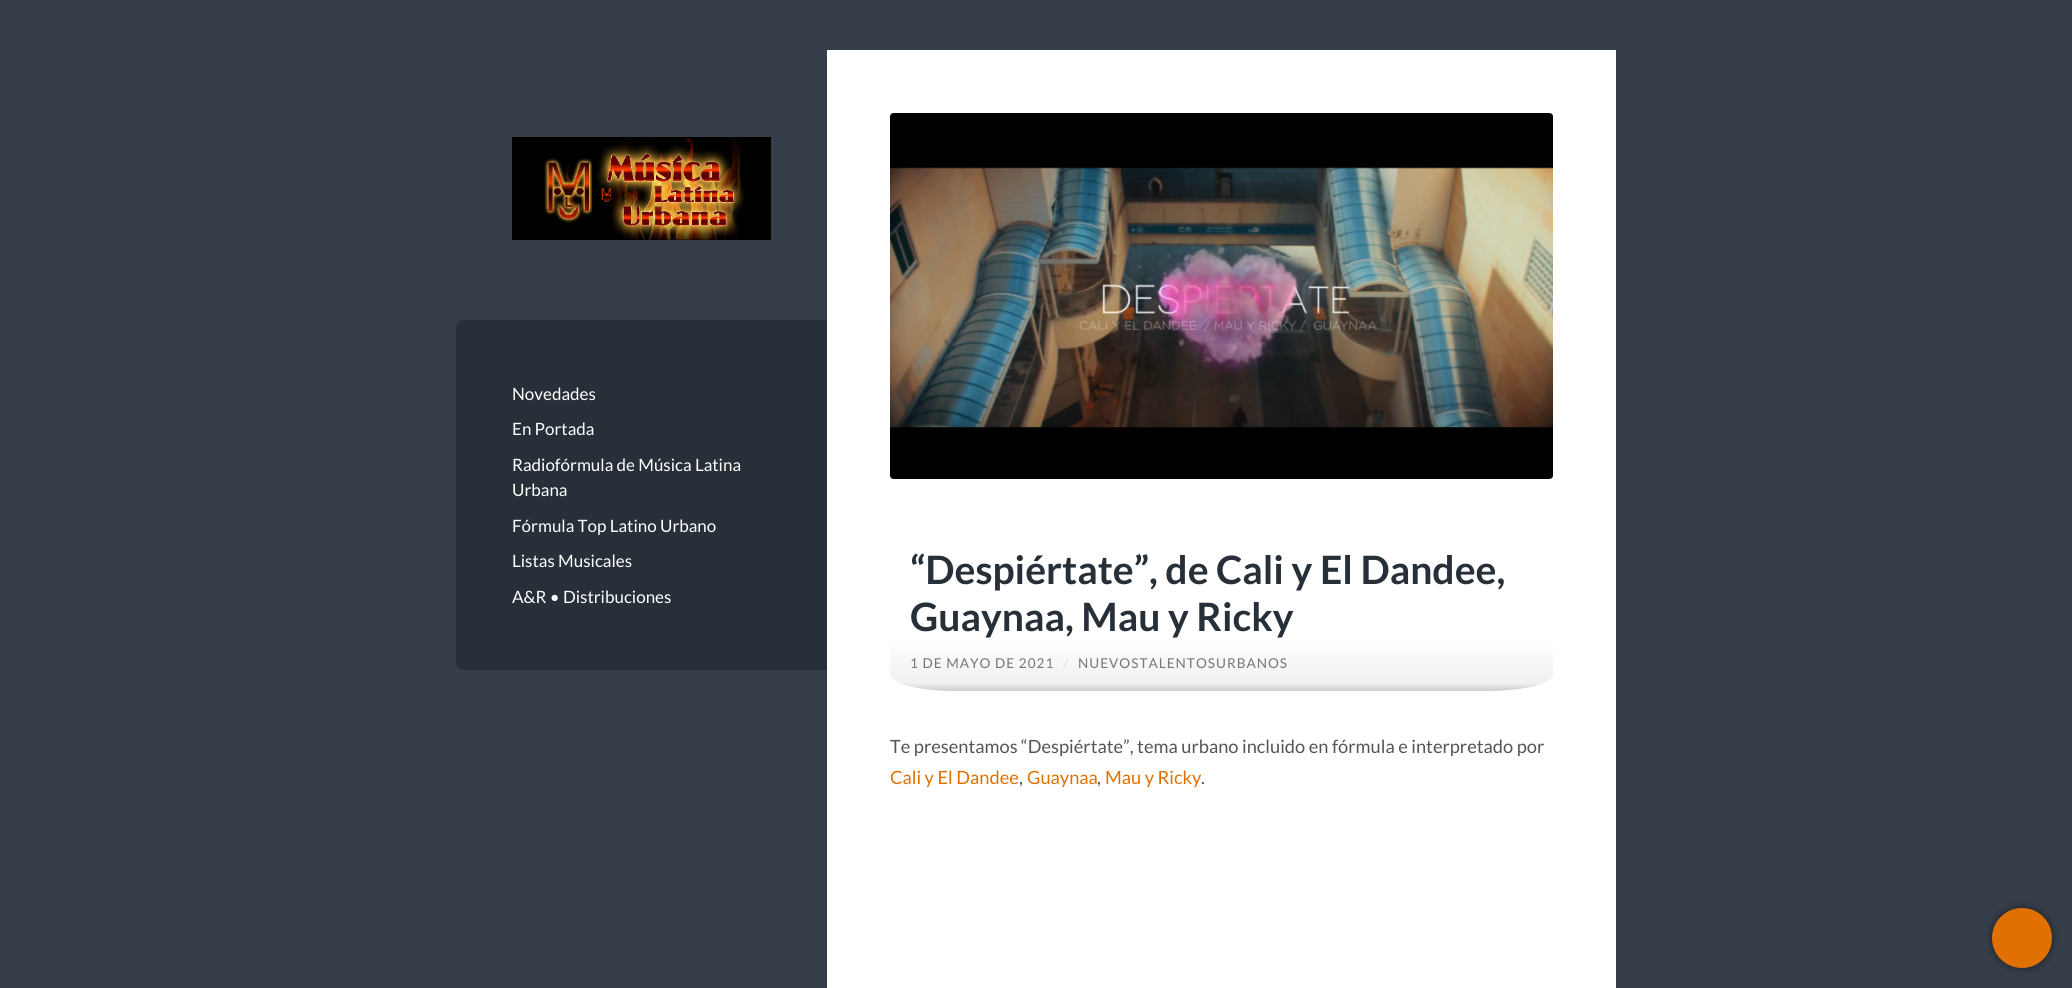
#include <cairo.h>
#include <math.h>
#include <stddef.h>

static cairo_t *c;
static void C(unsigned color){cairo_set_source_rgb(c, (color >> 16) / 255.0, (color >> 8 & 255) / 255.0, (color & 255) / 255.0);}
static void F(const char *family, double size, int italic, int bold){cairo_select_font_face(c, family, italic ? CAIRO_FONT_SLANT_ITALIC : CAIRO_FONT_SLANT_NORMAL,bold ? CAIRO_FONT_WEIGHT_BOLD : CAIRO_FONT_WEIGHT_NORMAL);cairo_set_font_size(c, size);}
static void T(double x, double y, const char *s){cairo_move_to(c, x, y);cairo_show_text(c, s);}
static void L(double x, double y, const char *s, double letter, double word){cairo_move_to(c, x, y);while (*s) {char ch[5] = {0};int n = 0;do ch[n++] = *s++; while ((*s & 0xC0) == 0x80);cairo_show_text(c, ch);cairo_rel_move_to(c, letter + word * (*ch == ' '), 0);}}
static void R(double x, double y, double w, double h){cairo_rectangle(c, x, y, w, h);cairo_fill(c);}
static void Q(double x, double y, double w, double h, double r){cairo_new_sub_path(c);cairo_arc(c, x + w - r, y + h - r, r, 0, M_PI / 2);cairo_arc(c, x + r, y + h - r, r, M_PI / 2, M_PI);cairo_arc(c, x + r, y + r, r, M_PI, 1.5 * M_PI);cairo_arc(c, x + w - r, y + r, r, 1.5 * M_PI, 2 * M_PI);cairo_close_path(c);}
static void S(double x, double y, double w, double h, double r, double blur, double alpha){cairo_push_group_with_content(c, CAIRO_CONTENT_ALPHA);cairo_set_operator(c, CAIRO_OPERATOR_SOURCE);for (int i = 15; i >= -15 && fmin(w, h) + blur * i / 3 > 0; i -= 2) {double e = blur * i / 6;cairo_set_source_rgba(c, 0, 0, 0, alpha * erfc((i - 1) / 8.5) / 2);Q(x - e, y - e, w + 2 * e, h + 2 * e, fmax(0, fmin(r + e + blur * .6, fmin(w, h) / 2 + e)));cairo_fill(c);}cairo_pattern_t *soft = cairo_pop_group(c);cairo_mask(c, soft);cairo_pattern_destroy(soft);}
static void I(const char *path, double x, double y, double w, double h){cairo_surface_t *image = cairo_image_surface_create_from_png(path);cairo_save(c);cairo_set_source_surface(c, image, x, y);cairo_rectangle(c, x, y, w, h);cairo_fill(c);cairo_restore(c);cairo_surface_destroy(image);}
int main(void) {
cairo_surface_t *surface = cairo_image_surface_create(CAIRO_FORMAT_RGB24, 2072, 988);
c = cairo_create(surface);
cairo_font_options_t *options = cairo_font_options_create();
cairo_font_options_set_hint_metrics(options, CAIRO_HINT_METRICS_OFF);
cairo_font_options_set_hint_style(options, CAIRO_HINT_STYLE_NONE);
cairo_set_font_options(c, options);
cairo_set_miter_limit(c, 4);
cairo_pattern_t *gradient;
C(0x353e49);
cairo_paint(c);
I("1.png",512,137,259,103);
C(0x272f38);
cairo_new_path(c);
cairo_move_to(c,464,320);
cairo_line_to(c,827,320);
cairo_line_to(c,827,670);
cairo_line_to(c,464,670);
cairo_curve_to(c,459.5,670,456,666.5,456,662);
cairo_line_to(c,456,328);
cairo_curve_to(c,456,323.5,459.5,320,464,320);
cairo_close_path(c);
cairo_fill(c);
F("Lato",17,0,0);
C(0xffffff);
T(512,400,"Novedades");
T(512,435,"En Portada");
T(512,471,"Radiofórmula de Música Latina");
T(512,496,"Urbana");
T(512,532,"Fórmula Top Latino Urbano");
T(512,567,"Listas Musicales");
T(512,603,"A&R • Distribuciones");
R(827,50,789,938);
I("2.png",890,113,663,366);
gradient = cairo_pattern_create_linear(1222,526,1222,691);
cairo_pattern_add_color_stop_rgba(gradient,0,1,1,1,1);
cairo_pattern_add_color_stop_rgba(gradient,.68,1,1,1,1);
cairo_pattern_add_color_stop_rgba(gradient,.95,0.945,0.945,0.945,1);
cairo_pattern_add_color_stop_rgba(gradient,1,0.812,0.804,0.812,1);
cairo_set_source(c,gradient);
cairo_pattern_destroy(gradient);
cairo_new_path(c);
cairo_move_to(c,956,526);
cairo_line_to(c,1487,526);
cairo_curve_to(c,1523,526,1553,533,1553,542);
cairo_line_to(c,1553,674);
cairo_curve_to(c,1553,684,1523,691,1487,691);
cairo_line_to(c,956,691);
cairo_curve_to(c,920,691,890,684,890,674);
cairo_line_to(c,890,542);
cairo_curve_to(c,890,533,920,526,956,526);
cairo_close_path(c);
cairo_fill(c);
F("Lato",39.1,0,1);
C(0x272f38);
T(910,584,"“Despiértate”, de Cali y El Dandee,");
T(910,631,"Guaynaa, Mau y Ricky");
F("Lato",13.6,0,0);
C(0x767676);
L(910,668,"1 DE MAYO DE 2021",1,0);
C(0xdddddd);
L(1063,668,"/",1,0);
C(0x767676);
L(1078,668,"NUEVOSTALENTOSURBANOS",1,0);
F("Lato",18.25,0,0);
C(0x555555);
T(890,753,"Te presentamos “Despiértate”, tema urbano incluido en fórmula e interpretado por");
C(0xe07000);
T(890,784,"Cali y El Dandee");
C(0x555555);
T(1019,784,",");
C(0xe07000);
T(1027,784,"Guaynaa");
C(0x555555);
T(1097,784,",");
C(0xe07000);
T(1105,784,"Mau y Ricky");
C(0x555555);
T(1201,784,".");
C(0x000000);
S(1992,908,60,60,30,4,.5);
C(0xe07000);
cairo_arc(c,2022,938,30,0,2 * M_PI);
cairo_fill(c);
cairo_surface_write_to_png(surface, "o.png");
cairo_font_options_destroy(options);
cairo_destroy(c);
cairo_surface_destroy(surface);
return 0;
}
